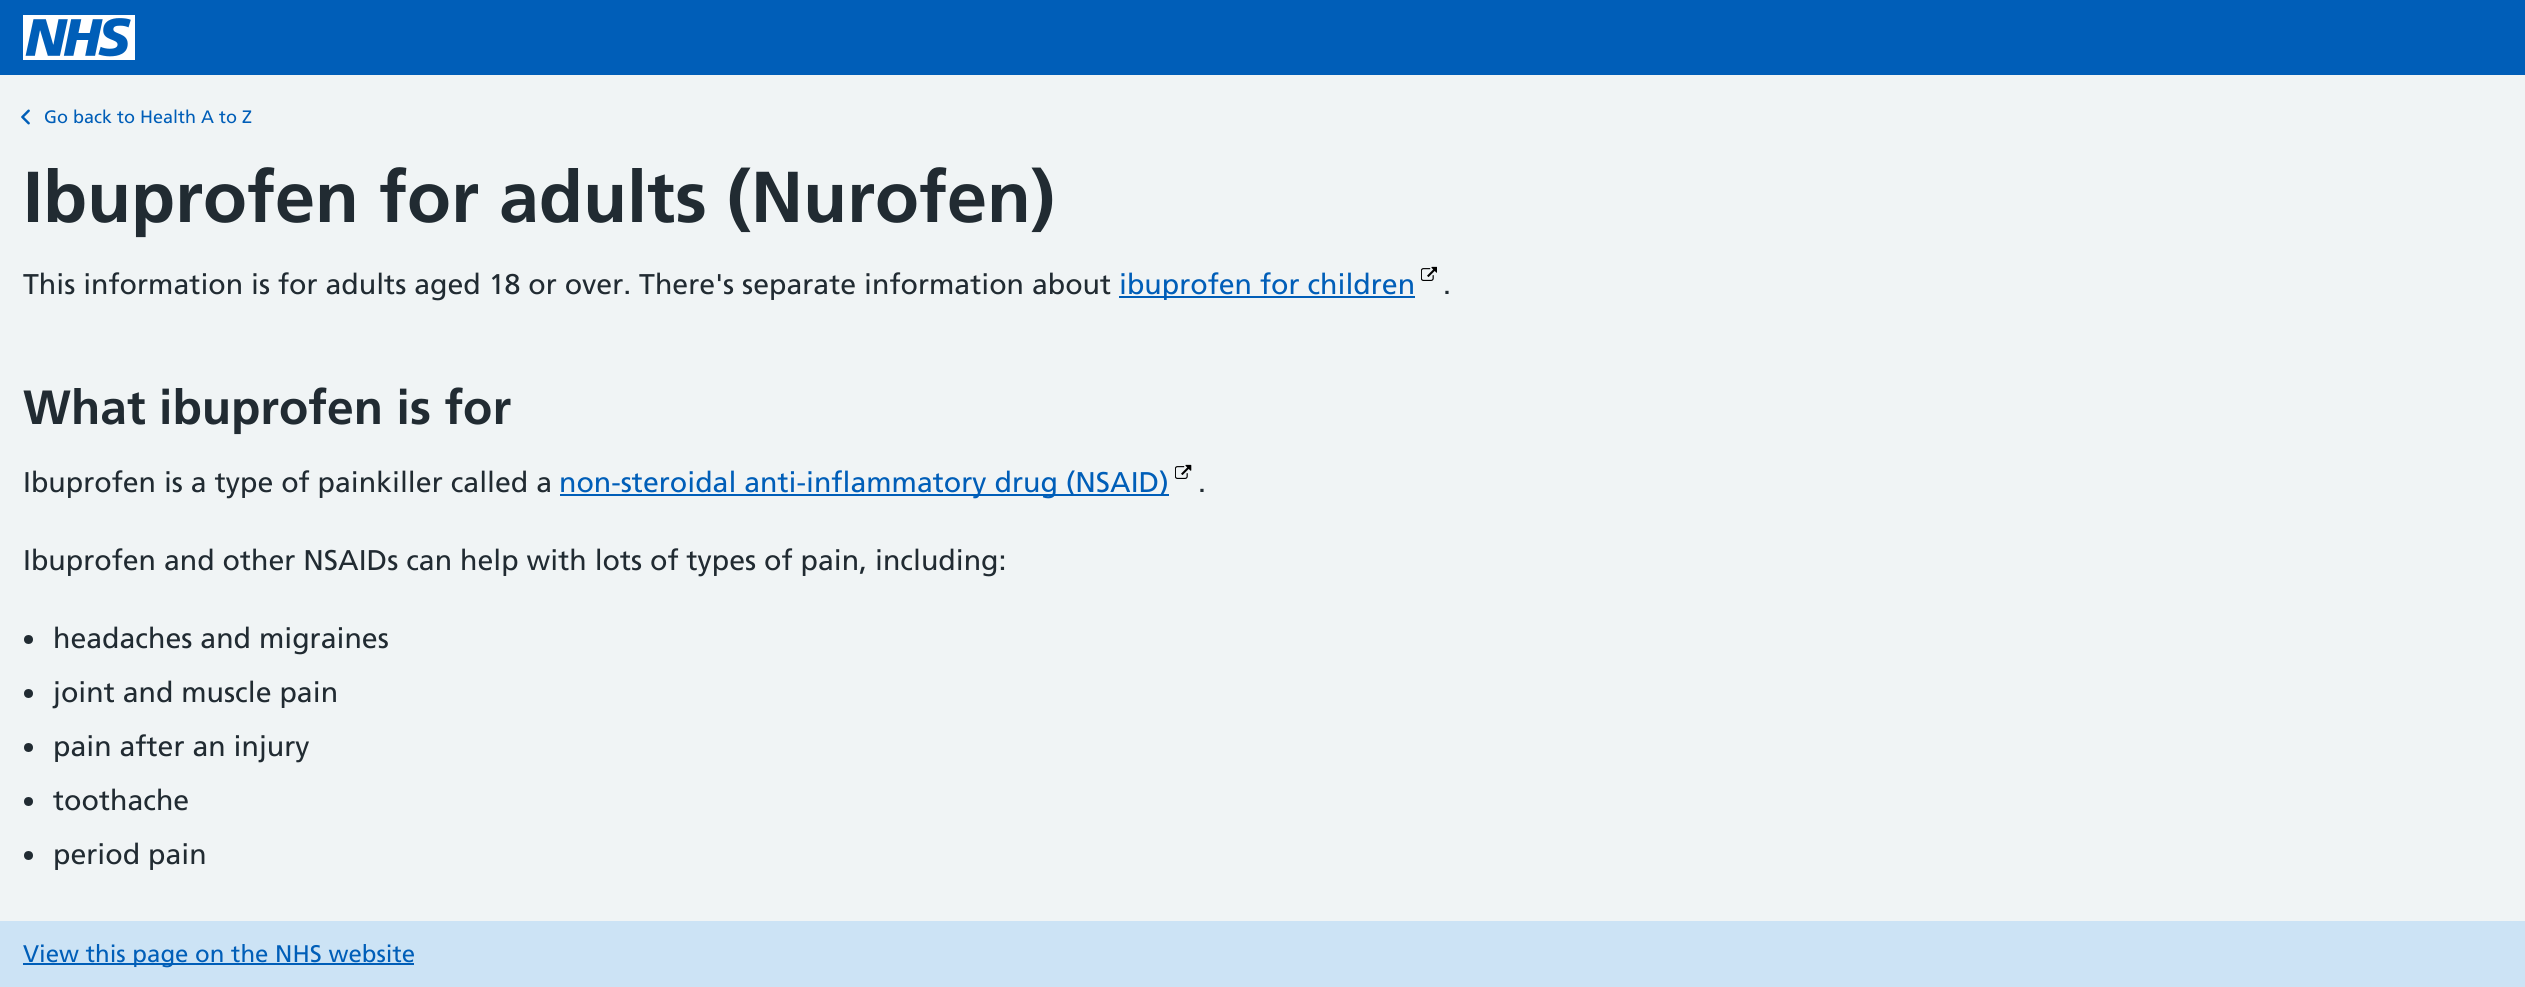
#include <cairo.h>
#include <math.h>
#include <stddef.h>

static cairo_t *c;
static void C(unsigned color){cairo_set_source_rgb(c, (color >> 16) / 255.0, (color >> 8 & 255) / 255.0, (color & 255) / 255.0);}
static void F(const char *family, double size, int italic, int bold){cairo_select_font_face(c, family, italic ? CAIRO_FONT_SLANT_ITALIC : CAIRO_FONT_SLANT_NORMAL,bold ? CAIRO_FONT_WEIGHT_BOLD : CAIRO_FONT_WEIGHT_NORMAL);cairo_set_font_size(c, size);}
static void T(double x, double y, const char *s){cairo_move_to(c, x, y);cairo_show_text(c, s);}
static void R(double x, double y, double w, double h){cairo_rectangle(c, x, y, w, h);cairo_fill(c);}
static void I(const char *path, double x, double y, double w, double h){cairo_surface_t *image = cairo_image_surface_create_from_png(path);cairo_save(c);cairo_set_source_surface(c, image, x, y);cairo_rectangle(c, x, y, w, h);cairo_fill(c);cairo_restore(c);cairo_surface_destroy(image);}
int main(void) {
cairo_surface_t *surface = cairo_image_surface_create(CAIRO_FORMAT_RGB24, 2525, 987);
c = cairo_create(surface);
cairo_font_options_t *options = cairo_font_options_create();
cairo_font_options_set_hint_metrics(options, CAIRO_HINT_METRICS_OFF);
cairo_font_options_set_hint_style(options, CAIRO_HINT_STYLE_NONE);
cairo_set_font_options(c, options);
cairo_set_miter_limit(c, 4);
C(0xf0f4f5);
cairo_paint(c);
C(0x005eb8);
R(0,0,2525,75);
I("1.png",23,15,112,45);
I("2.png",21,109,9,16);
F("Frutiger",18,0,0);
T(44,123,"Go back to Health A to Z");
F("Frutiger",72,0,1);
C(0x212b32);
T(23,222,"Ibuprofen for adults (Nurofen)");
F("Frutiger",28.5,0,0);
T(23,294,"This information is for adults aged 18 or over. There's separate information about");
C(0x005eb8);
R(1119,296,296,2);
T(1119,294,"ibuprofen for children");
I("3.png",1421,266,16,15);
C(0x212b32);
T(1443,294,".");
F("Frutiger",48,0,1);
T(23,424,"What ibuprofen is for");
F("Frutiger",28.5,0,0);
T(23,492,"Ibuprofen is a type of painkiller called a");
C(0x005eb8);
R(560,494,609,2);
T(559,492,"non-steroidal anti-inflammatory drug (NSAID)");
I("4.png",1175,464,17,15);
C(0x212b32);
T(1198,492,".");
T(23,570,"Ibuprofen and other NSAIDs can help with lots of types of pain, including:");
cairo_new_path(c);
cairo_arc(c,28.5,639.5,4.5,0,2 * M_PI);
cairo_fill(c);
T(53,648,"headaches and migraines");
cairo_new_path(c);
cairo_arc(c,28.5,693.5,4.5,0,2 * M_PI);
cairo_fill(c);
T(53,702,"joint and muscle pain");
cairo_new_path(c);
cairo_arc(c,28.5,747.5,4.5,0,2 * M_PI);
cairo_fill(c);
T(53,756,"pain after an injury");
cairo_new_path(c);
cairo_arc(c,28.5,801.5,4.5,0,2 * M_PI);
cairo_fill(c);
T(53,810,"toothache");
cairo_new_path(c);
cairo_arc(c,28.5,855.5,4.5,0,2 * M_PI);
cairo_fill(c);
T(53,864,"period pain");
C(0xcce3f5);
R(0,921,2525,66);
C(0x005eb8);
R(23,963,391,2);
F("Frutiger",24,0,0);
T(23,962,"View this page on the NHS website");
cairo_surface_write_to_png(surface, "o.png");
cairo_font_options_destroy(options);
cairo_destroy(c);
cairo_surface_destroy(surface);
return 0;
}
